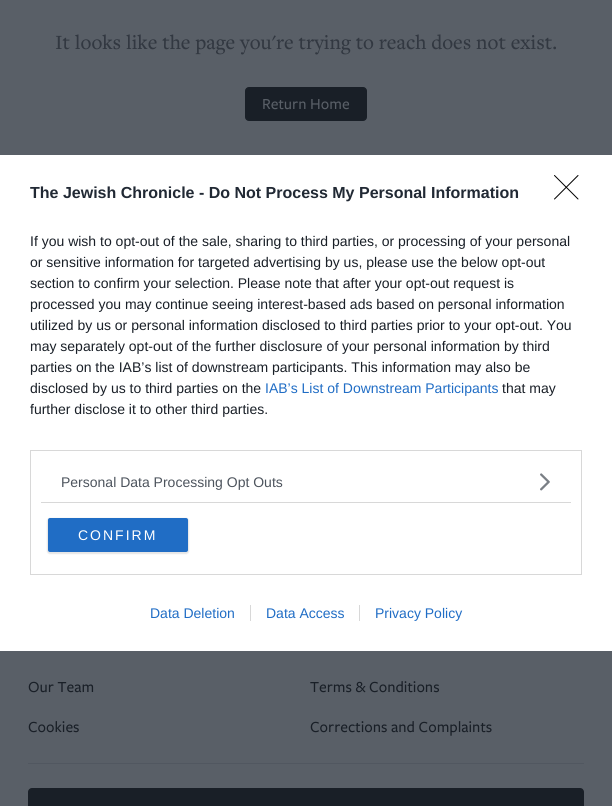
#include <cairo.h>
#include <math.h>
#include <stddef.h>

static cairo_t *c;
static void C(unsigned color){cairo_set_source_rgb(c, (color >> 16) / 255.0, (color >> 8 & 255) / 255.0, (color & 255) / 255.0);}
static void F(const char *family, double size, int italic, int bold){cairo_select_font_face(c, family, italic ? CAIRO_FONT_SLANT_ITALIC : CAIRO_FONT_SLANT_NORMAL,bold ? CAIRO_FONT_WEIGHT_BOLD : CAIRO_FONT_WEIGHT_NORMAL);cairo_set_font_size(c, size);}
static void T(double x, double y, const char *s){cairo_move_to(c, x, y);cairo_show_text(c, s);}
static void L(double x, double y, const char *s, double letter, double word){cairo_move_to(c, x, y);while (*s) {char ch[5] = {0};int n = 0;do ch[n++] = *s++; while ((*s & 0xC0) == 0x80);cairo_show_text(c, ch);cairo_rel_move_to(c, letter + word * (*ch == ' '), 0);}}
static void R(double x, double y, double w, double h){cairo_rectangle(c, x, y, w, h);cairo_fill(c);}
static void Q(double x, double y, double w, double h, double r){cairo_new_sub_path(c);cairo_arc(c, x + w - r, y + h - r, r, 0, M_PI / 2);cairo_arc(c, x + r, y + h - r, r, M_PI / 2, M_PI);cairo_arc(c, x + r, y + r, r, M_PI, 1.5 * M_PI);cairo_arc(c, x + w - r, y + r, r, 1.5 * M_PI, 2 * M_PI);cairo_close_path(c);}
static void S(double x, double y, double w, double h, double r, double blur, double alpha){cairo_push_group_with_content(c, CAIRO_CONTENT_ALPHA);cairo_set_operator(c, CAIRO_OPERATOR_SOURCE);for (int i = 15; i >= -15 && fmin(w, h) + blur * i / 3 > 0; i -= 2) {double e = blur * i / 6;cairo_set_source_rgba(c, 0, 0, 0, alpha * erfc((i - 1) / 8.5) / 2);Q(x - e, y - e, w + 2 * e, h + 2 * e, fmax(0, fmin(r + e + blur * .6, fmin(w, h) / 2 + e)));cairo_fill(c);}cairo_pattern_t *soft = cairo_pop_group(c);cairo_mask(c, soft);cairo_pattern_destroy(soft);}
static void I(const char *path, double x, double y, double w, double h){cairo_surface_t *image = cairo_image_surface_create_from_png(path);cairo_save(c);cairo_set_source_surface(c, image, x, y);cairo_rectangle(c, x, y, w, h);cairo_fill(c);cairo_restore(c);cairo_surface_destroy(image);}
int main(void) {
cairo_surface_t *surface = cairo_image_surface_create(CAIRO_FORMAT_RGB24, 612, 806);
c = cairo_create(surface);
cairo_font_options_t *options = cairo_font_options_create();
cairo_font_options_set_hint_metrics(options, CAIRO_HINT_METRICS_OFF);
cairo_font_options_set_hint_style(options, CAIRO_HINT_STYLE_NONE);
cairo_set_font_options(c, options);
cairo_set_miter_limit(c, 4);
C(0x595f67);
cairo_paint(c);
F("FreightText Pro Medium",21,0,0);
C(0x323841);
T(55,49,"It looks like the page you're trying to reach does not exist.");
C(0x191f27);
Q(245.5,87.5,121,33,3.5);
cairo_fill_preserve(c);
cairo_set_line_width(c,1);
cairo_stroke(c);
F("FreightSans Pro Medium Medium",16,0,0);
C(0x595f67);
T(262,109,"Return Home");
C(0xffffff);
R(0,155,612,496);
cairo_new_path(c);
cairo_move_to(c,554.5,175.5);
cairo_line_to(c,578,199);
cairo_move_to(c,578,175.5);
cairo_line_to(c,554.5,199);
C(0x000000);
cairo_set_line_cap(c,CAIRO_LINE_CAP_ROUND);
cairo_set_line_join(c,CAIRO_LINE_JOIN_ROUND);
cairo_stroke(c);
F("Liberation Sans",16,0,1);
C(0x212934);
T(30,198,"The Jewish Chronicle - Do Not Process My Personal Information");
F("Liberation Sans",14,0,0);
C(0x191f27);
T(30,246,"If you wish to opt-out of the sale, sharing to third parties, or processing of your personal");
T(30,267,"or sensitive information for targeted advertising by us, please use the below opt-out");
T(30,288,"section to confirm your selection. Please note that after your opt-out request is");
T(30,309,"processed you may continue seeing interest-based ads based on personal information");
T(30,330,"utilized by us or personal information disclosed to third parties prior to your opt-out. You");
T(30,351,"may separately opt-out of the further disclosure of your personal information by third");
T(30,372,"parties on the IAB’s list of downstream participants. This information may also be");
T(30,393,"disclosed by us to third parties on the");
C(0x206dc5);
T(265,393,"IAB’s List of Downstream Participants");
C(0x191f27);
T(502,393,"that may");
T(30,414,"further disclose it to other third parties.");
cairo_rectangle(c,30.5,450.5,551,124);
C(0xd8d8d8);
cairo_set_line_cap(c,CAIRO_LINE_CAP_BUTT);
cairo_set_line_join(c,CAIRO_LINE_JOIN_MITER);
cairo_stroke(c);
R(41,502,530,1);
C(0x4d545d);
T(61,487,"Personal Data Processing Opt Outs");
I("1.png",540,473,10,18);
C(0x000000);
S(47,518,142,36,3,.5,.1);
C(0x206dc5);
Q(48,518,140,34,2);
cairo_fill(c);
C(0xffffff);
L(78,540,"CONFIRM",2,0);
C(0x206dc5);
T(150,618,"Data Deletion");
T(266,618,"Data Access");
C(0xd8d8d8);
R(250,605,1,16);
C(0x206dc5);
T(375,618,"Privacy Policy");
C(0xd8d8d8);
R(359,605,1,16);
C(0x515760);
R(28,763,556,1);
F("FreightSans Pro Medium Medium",16,0,0);
C(0x191f27);
T(28,692,"Our Team");
T(28,732,"Cookies");
T(310,692,"Terms & Conditions");
T(310,732,"Corrections and Complaints");
Q(28,788,556,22,4);
cairo_fill(c);
cairo_surface_write_to_png(surface, "o.png");
cairo_font_options_destroy(options);
cairo_destroy(c);
cairo_surface_destroy(surface);
return 0;
}
